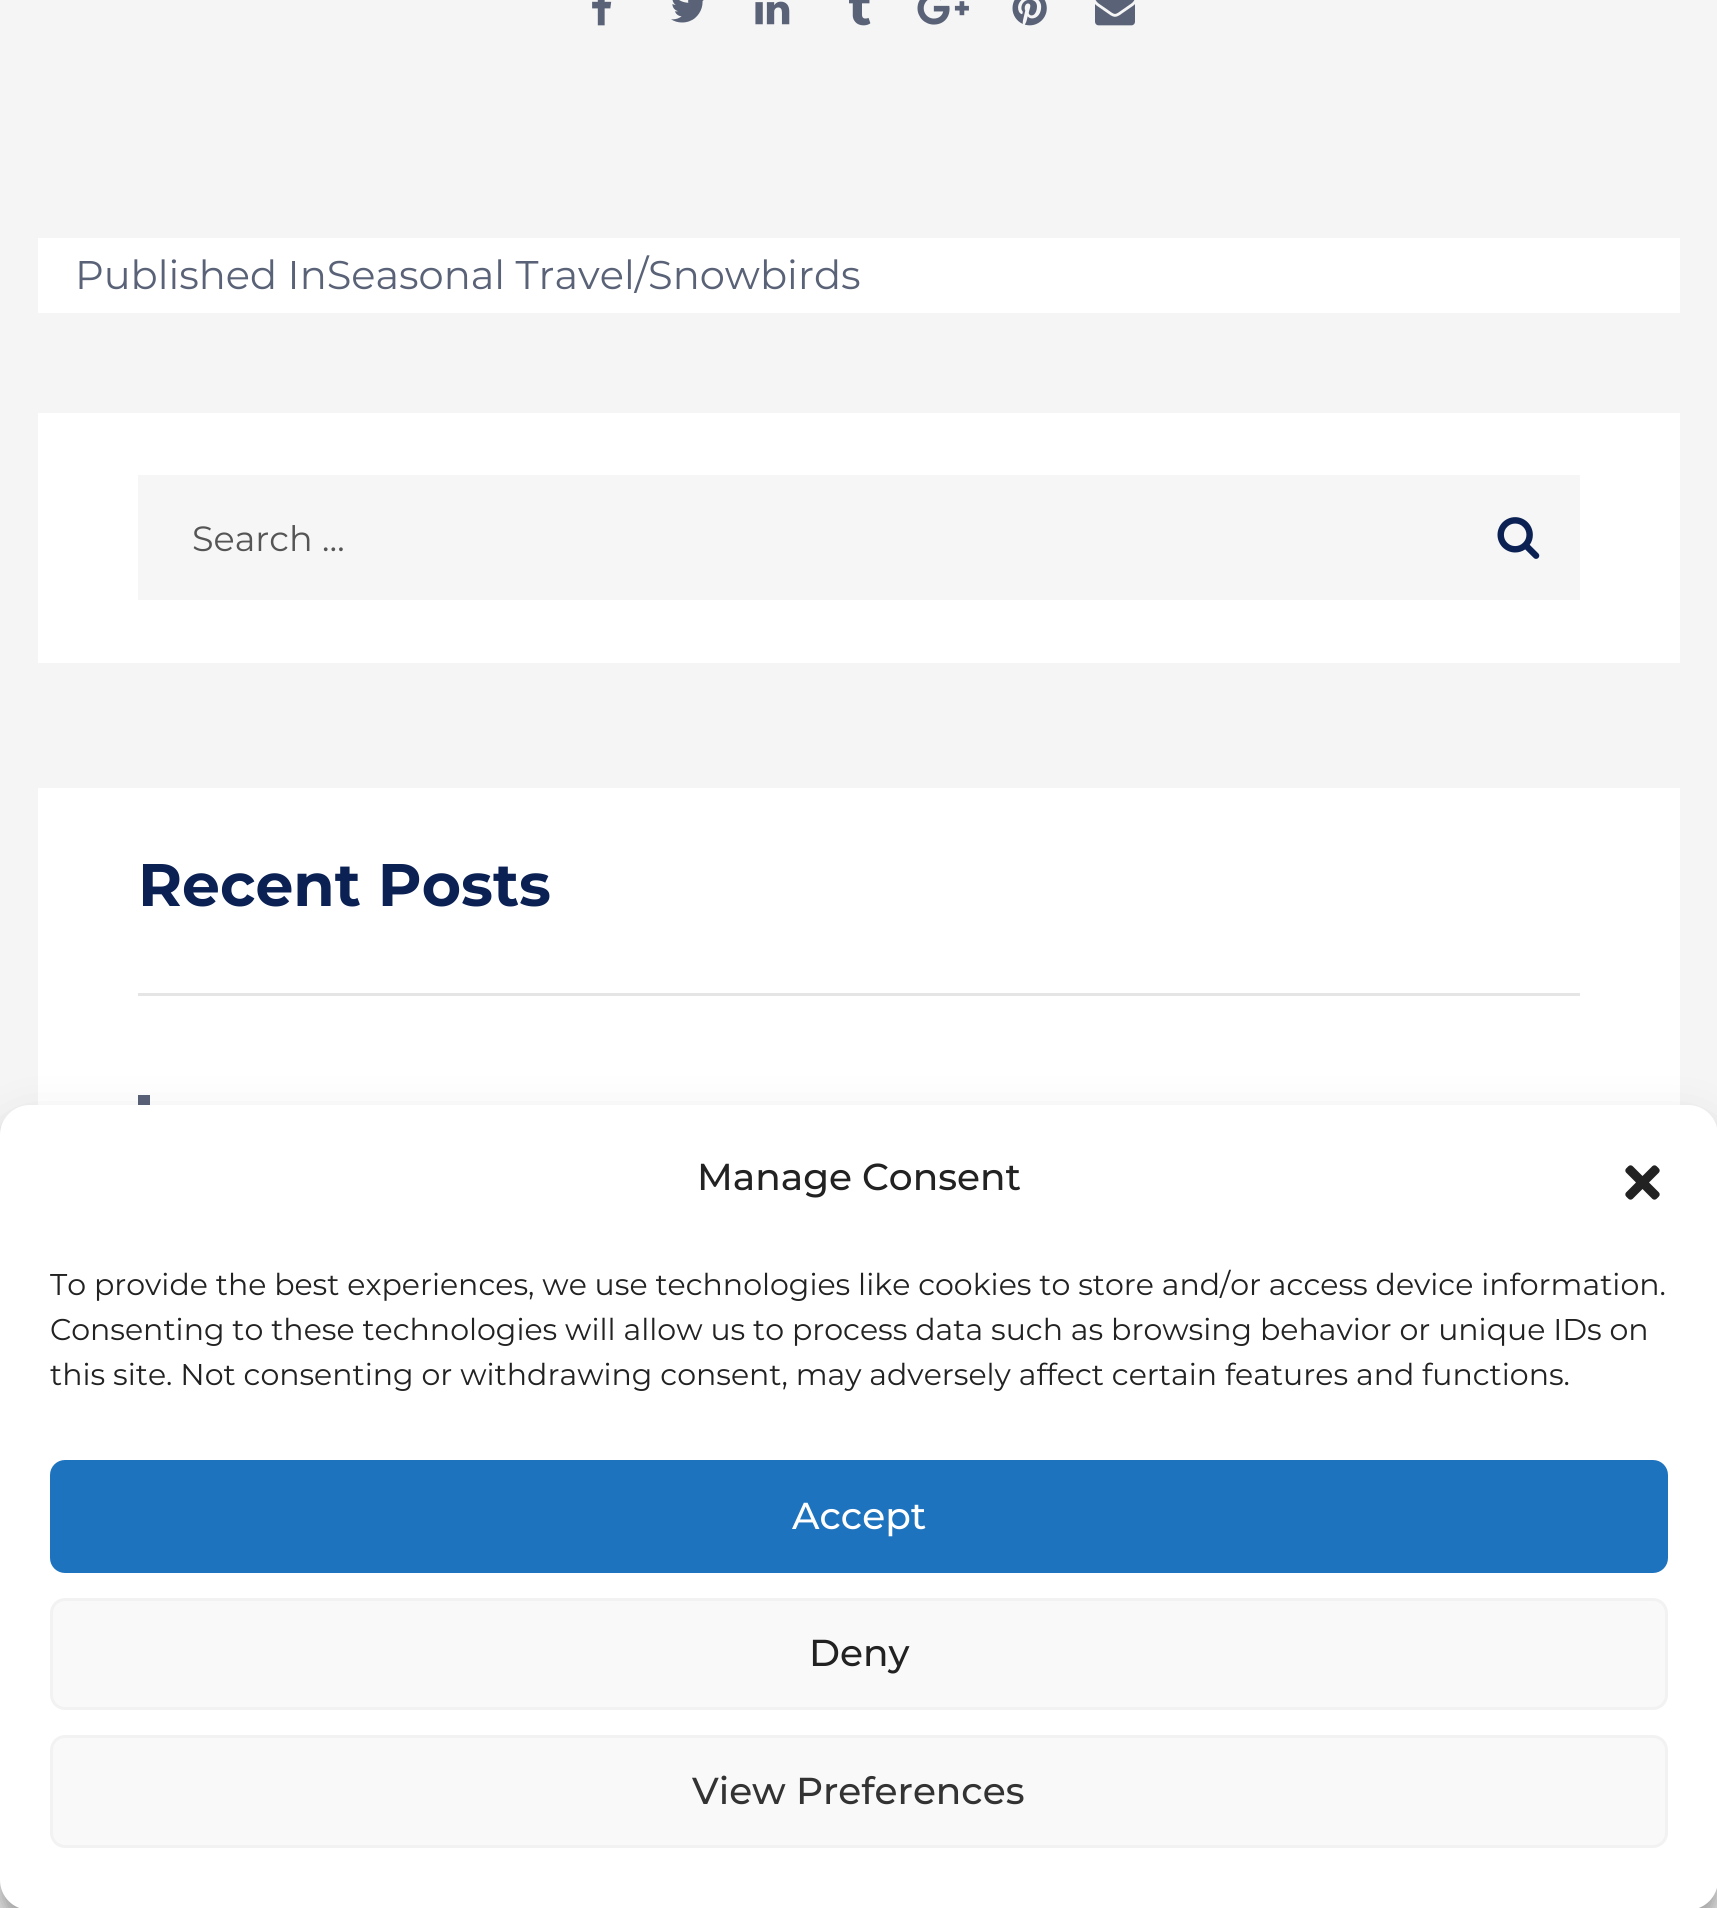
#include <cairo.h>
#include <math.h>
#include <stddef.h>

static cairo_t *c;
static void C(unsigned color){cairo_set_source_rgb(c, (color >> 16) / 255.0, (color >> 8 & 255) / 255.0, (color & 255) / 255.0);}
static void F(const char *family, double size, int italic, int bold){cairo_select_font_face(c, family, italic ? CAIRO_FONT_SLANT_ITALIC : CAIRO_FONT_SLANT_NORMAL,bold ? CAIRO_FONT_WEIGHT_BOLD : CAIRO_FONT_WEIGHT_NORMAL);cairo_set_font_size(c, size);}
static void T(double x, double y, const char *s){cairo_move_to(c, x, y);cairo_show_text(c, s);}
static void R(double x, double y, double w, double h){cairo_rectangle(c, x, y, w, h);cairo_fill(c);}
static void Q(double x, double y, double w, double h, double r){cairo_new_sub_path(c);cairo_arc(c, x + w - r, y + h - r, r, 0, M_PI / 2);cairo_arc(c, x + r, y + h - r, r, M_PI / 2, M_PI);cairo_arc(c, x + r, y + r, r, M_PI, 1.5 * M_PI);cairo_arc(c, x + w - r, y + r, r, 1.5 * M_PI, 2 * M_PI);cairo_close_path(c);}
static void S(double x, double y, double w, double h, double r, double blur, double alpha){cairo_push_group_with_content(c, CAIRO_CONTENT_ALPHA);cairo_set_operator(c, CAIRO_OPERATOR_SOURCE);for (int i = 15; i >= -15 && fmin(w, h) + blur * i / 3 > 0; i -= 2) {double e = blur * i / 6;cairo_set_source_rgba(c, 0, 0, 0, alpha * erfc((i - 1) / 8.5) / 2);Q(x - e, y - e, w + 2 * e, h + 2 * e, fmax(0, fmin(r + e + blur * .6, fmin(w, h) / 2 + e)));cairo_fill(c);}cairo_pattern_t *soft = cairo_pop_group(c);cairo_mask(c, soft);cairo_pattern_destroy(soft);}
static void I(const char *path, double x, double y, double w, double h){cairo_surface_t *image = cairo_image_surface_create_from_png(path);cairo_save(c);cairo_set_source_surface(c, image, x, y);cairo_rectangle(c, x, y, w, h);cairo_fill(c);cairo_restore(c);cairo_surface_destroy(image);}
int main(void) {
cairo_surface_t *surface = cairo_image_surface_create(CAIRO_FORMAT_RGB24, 1717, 1908);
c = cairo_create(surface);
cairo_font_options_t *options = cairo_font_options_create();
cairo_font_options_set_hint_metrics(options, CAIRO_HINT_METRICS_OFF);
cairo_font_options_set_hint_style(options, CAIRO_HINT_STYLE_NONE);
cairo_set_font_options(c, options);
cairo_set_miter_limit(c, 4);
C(0xf5f5f5);
cairo_paint(c);
I("1.png",592,0,20,26);
I("2.png",671,0,33,23);
I("3.png",755,1,35,24);
I("4.png",849,0,22,26);
I("5.png",917,0,52,25);
I("6.png",1012,0,35,26);
I("7.png",1095,0,40,26);
C(0xffffff);
R(38,238,1642,75);
F("Montserrat",40,0,0);
C(0x596277);
T(75,289,"Published InSeasonal Travel/Snowbirds");
C(0xffffff);
R(38,413,1642,250);
C(0xf6f6f6);
cairo_rectangle(c,139.5,476.5,1439,122);
cairo_fill_preserve(c);
cairo_set_line_width(c,3);
cairo_stroke(c);
F("Montserrat",35,0,0);
C(0x555555);
T(192,551,"Search …");
I("8.png",1497,517,43,42);
C(0xffffff);
R(38,788,1642,317);
C(0xe5e5e5);
R(138,993,1442,3);
F("Montserrat",60,0,1);
C(0x0b2154);
T(138,906,"Recent Posts");
C(0x596277);
R(138,1095,12,10);
C(0x000000);
S(0,1120,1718,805,30,7.5,.23);
S(0,1130,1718,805,30,25,.19);
C(0xffffff);
Q(0,1105,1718,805,30);
cairo_fill(c);
F("Montserrat Medium",37.5,0,0);
C(0x222222);
T(697,1190,"Manage Consent");
I("9.png",1625,1165,35,35);
F("Montserrat",30,0,0);
T(50,1295,"To provide the best experiences, we use technologies like cookies to store and/or access device information.");
T(50,1340,"Consenting to these technologies will allow us to process data such as browsing behavior or unique IDs on");
T(50,1385,"this site. Not consenting or withdrawing consent, may adversely affect certain features and functions.");
C(0x1e73be);
Q(51.5,1461.5,1615,110,13.5);
cairo_fill_preserve(c);
cairo_stroke(c);
F("Montserrat Medium",37.5,0,0);
C(0xffffff);
T(792,1529,"Accept");
C(0xf9f9f9);
Q(51.5,1599.5,1615,109,13.5);
cairo_fill_preserve(c);
C(0xf2f2f2);
cairo_stroke(c);
C(0x222222);
T(809,1666,"Deny");
C(0xf9f9f9);
Q(51.5,1736.5,1615,110,13.5);
cairo_fill_preserve(c);
C(0xf2f2f2);
cairo_stroke(c);
C(0x333333);
T(692,1804,"View Preferences");
cairo_surface_write_to_png(surface, "o.png");
cairo_font_options_destroy(options);
cairo_destroy(c);
cairo_surface_destroy(surface);
return 0;
}
